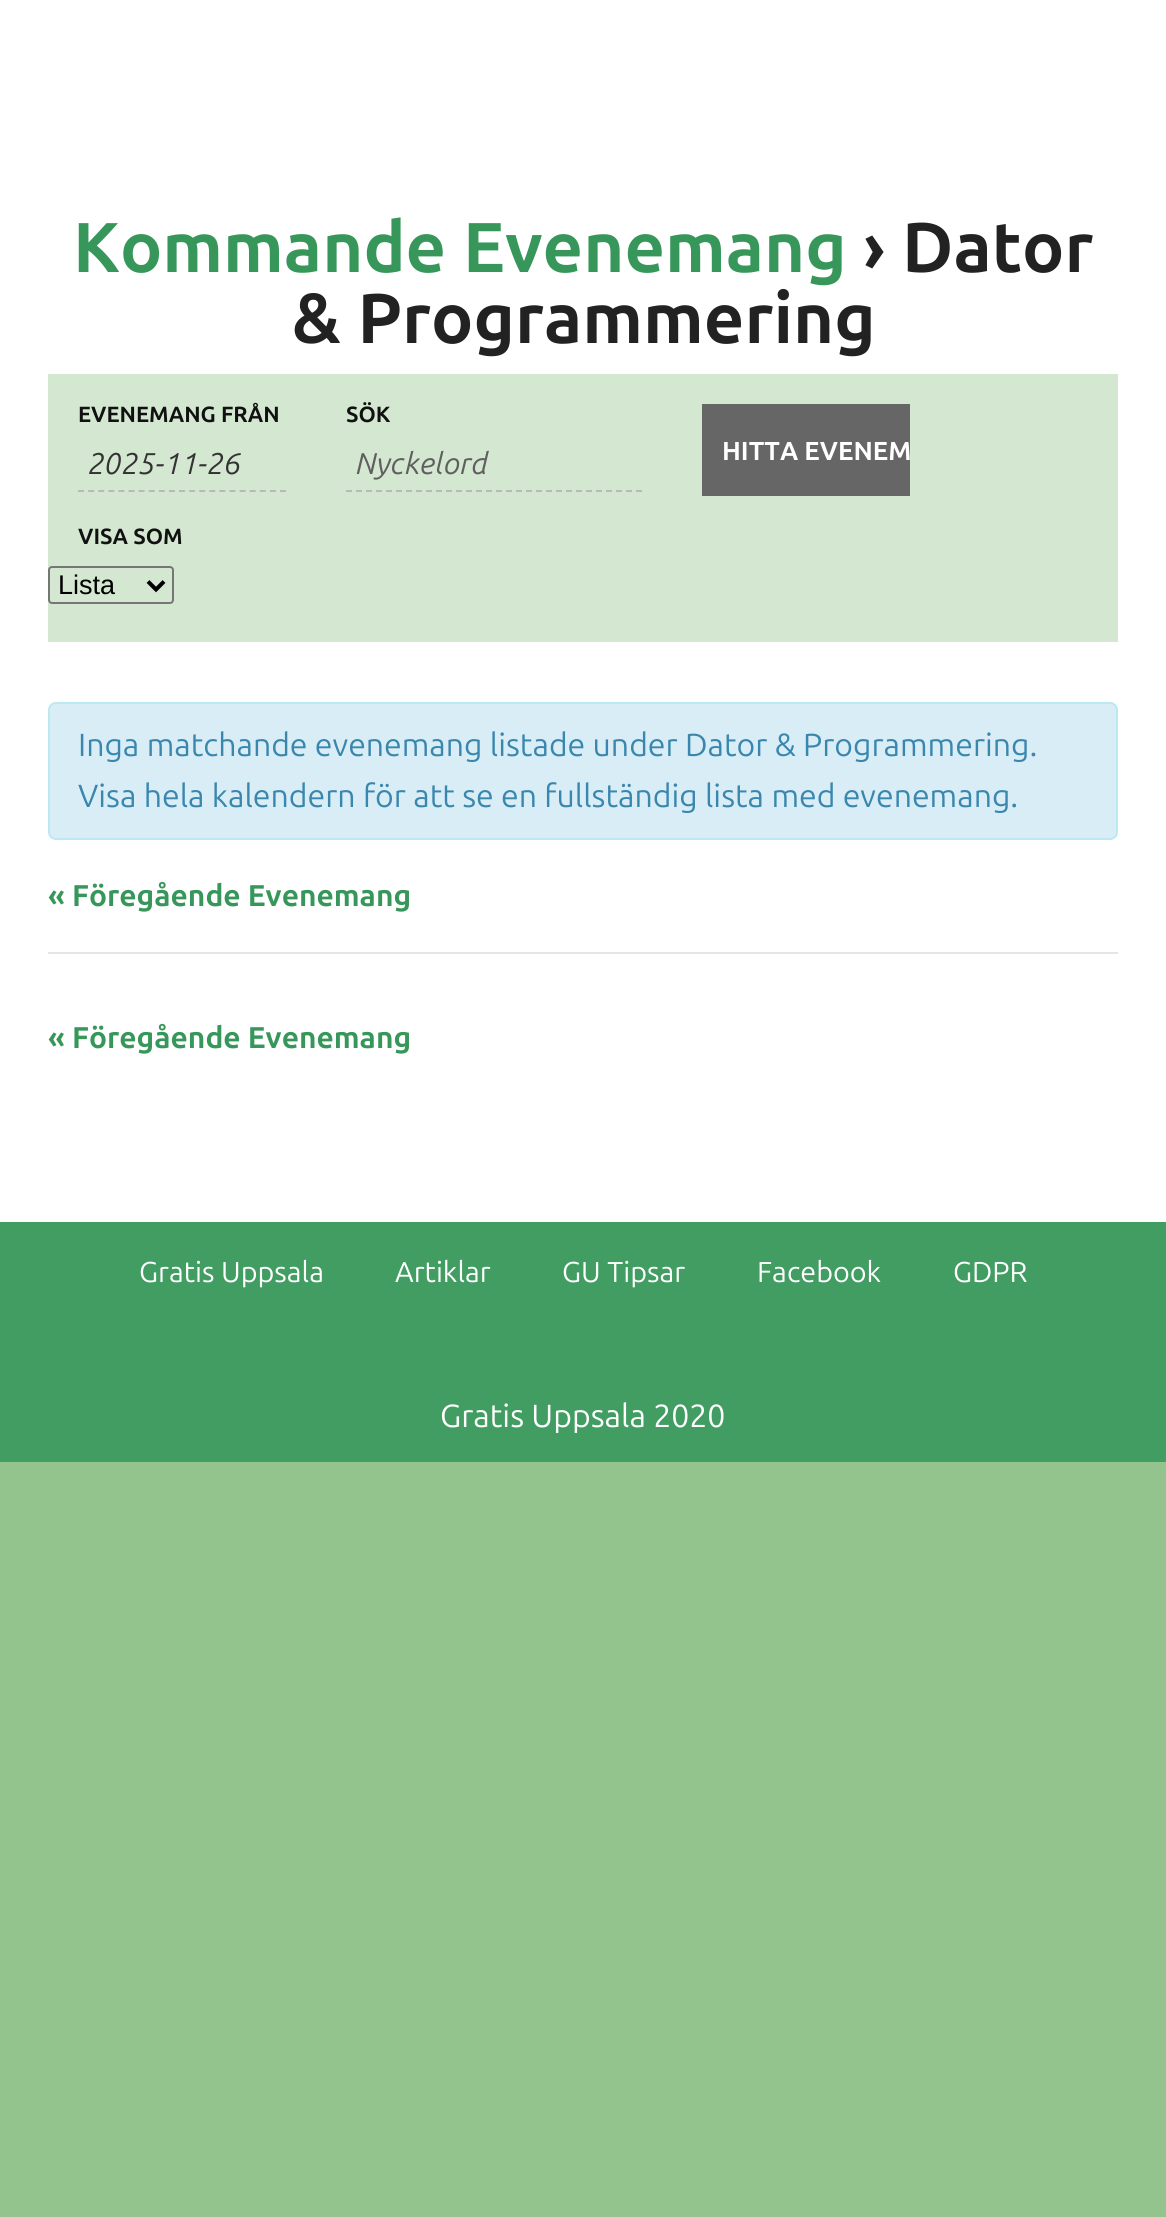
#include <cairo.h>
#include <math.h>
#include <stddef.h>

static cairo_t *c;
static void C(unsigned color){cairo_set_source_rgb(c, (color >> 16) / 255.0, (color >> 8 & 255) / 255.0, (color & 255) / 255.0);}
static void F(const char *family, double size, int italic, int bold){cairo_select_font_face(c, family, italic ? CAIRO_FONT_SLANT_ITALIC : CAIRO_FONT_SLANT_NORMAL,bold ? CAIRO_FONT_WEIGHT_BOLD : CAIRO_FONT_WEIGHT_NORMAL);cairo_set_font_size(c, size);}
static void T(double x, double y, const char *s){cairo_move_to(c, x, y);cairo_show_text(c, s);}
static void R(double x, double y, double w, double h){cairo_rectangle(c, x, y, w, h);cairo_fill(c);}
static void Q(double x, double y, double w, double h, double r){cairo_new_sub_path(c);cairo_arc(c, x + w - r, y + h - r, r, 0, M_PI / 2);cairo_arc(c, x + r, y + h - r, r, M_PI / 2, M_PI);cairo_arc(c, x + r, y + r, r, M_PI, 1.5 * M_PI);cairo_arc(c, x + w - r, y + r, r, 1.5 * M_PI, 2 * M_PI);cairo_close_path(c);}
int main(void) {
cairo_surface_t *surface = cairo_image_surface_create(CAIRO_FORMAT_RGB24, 1166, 2217);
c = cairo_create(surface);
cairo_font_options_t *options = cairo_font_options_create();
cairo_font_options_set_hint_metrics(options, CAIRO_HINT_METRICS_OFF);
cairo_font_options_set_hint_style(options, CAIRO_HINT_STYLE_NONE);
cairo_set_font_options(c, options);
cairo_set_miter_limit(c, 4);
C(0x93c48d);
cairo_paint(c);
C(0xffffff);
R(0,0,1166,1222);
F("Ubuntu",70.5,0,1);
C(0x37975a);
T(73,272,"Kommande Evenemang");
C(0x222222);
T(863,272,"› Dator");
T(292,343,"& Programmering");
C(0xd4e7d1);
R(48,374,1070,268);
F("Ubuntu",22,0,1);
C(0x111111);
T(78,422,"EVENEMANG FRÅN");
cairo_new_path(c);
cairo_move_to(c,78,491);
cairo_line_to(c,286,491);
C(0xb9b9b9);
cairo_set_dash(c,(double[]){6,4.1},2,0);
cairo_stroke(c);
F("Ubuntu",30,1,0);
C(0x333333);
T(88,474,"2025-11-26");
F("Ubuntu",22,0,1);
C(0x111111);
T(346,422,"SÖK");
cairo_new_path(c);
cairo_move_to(c,346,491);
cairo_line_to(c,642,491);
C(0xb9b9b9);
cairo_set_dash(c,(double[]){6,4},2,0);
cairo_stroke(c);
F("Ubuntu",30,1,0);
C(0x5f5f5f);
T(356,474,"Nyckelord");
C(0x666666);
R(702,404,208,92);
F("Ubuntu",26,0,1);
C(0xffffff);
T(722,460,"HITTA EVENEM");
F("Ubuntu",22,0,1);
C(0x111111);
T(78,544,"VISA SOM");
Q(49,567,124,36,3);
C(0x767676);
cairo_set_dash(c,NULL,0,0);
cairo_stroke(c);
cairo_new_path(c);
cairo_move_to(c,148,581.5);
cairo_line_to(c,156,589.5);
cairo_line_to(c,164,581.5);
C(0x000000);
cairo_set_line_width(c,4);
cairo_stroke(c);
F("Liberation Sans",27,0,0);
T(58,594,"Lista");
C(0xd9edf7);
Q(49,703,1068,136,7);
cairo_fill_preserve(c);
C(0xbce8f1);
cairo_set_line_width(c,2);
cairo_stroke(c);
F("Ubuntu",32,0,0);
C(0x3a87ad);
T(78,756,"Inga matchande evenemang listade under Dator & Programmering.");
T(78,807,"Visa hela kalendern för att se en fullständig lista med evenemang.");
F("Ubuntu",30,0,1);
C(0x37975a);
T(48,906,"« Föregående Evenemang");
C(0xe5e5e5);
R(48,952,1070,2);
C(0x37975a);
T(48,1048,"« Föregående Evenemang");
C(0x419d62);
R(0,1222,1166,240);
F("Ubuntu",28.75,0,0);
C(0xffffff);
T(139,1282,"Gratis Uppsala");
T(395,1282,"Artiklar");
T(562,1282,"GU Tipsar");
T(757,1282,"Facebook");
T(953,1282,"GDPR");
F("Ubuntu",32,0,0);
T(440,1427,"Gratis Uppsala 2020");
cairo_surface_write_to_png(surface, "o.png");
cairo_font_options_destroy(options);
cairo_destroy(c);
cairo_surface_destroy(surface);
return 0;
}
